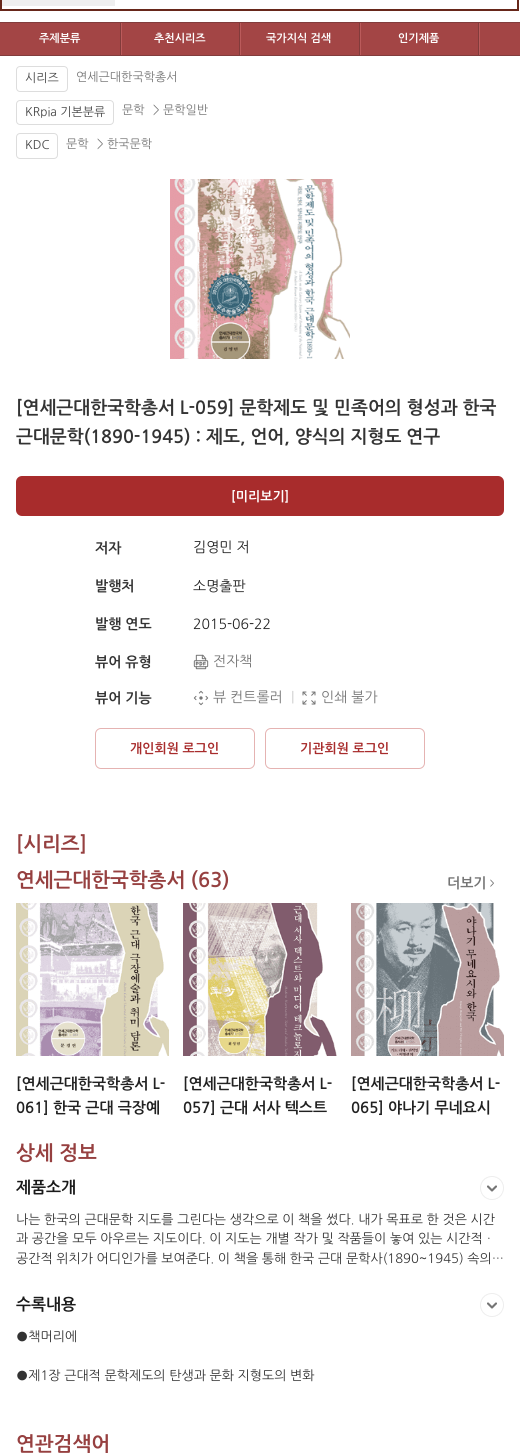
#include <cairo.h>
#include <math.h>
#include <stddef.h>

static cairo_t *c;
static void C(unsigned color){cairo_set_source_rgb(c, (color >> 16) / 255.0, (color >> 8 & 255) / 255.0, (color & 255) / 255.0);}
static void F(const char *family, double size, int italic, int bold){cairo_select_font_face(c, family, italic ? CAIRO_FONT_SLANT_ITALIC : CAIRO_FONT_SLANT_NORMAL,bold ? CAIRO_FONT_WEIGHT_BOLD : CAIRO_FONT_WEIGHT_NORMAL);cairo_set_font_size(c, size);}
static void T(double x, double y, const char *s){cairo_move_to(c, x, y);cairo_show_text(c, s);}
static void R(double x, double y, double w, double h){cairo_rectangle(c, x, y, w, h);cairo_fill(c);}
static void Q(double x, double y, double w, double h, double r){cairo_new_sub_path(c);cairo_arc(c, x + w - r, y + h - r, r, 0, M_PI / 2);cairo_arc(c, x + r, y + h - r, r, M_PI / 2, M_PI);cairo_arc(c, x + r, y + r, r, M_PI, 1.5 * M_PI);cairo_arc(c, x + w - r, y + r, r, 1.5 * M_PI, 2 * M_PI);cairo_close_path(c);}
static void I(const char *path, double x, double y, double w, double h){cairo_surface_t *image = cairo_image_surface_create_from_png(path);cairo_save(c);cairo_set_source_surface(c, image, x, y);cairo_rectangle(c, x, y, w, h);cairo_fill(c);cairo_restore(c);cairo_surface_destroy(image);}
int main(void) {
cairo_surface_t *surface = cairo_image_surface_create(CAIRO_FORMAT_RGB24, 520, 1453);
c = cairo_create(surface);
cairo_font_options_t *options = cairo_font_options_create();
cairo_font_options_set_hint_metrics(options, CAIRO_HINT_METRICS_OFF);
cairo_font_options_set_hint_style(options, CAIRO_HINT_STYLE_NONE);
cairo_set_font_options(c, options);
cairo_set_miter_limit(c, 4);
C(0xffffff);
cairo_paint(c);
cairo_rectangle(c,1,-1,517,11);
C(0x67271a);
cairo_stroke(c);
C(0xefefef);
R(2,0,113,6);
C(0xa34545);
R(0,23,520,32);
C(0x823c3c);
R(0,22,520,1);
R(0,55,520,1);
F("NanumGothic",11,0,1);
C(0xffffff);
T(39,42,"주제분류");
I("1.png",120,23,2,32);
T(154,42,"추천시리즈");
I("1.png",239,23,2,32);
T(266,42,"국가지식 검색");
I("1.png",359,23,2,32);
T(398,42,"인기제품");
I("1.png",478,23,2,32);
Q(16.5,66.5,51,25,3.5);
C(0xdddddd);
cairo_set_line_width(c,1);
cairo_stroke(c);
F("NanumGothic",12,0,0);
C(0x424242);
T(25,82,"시리즈");
C(0x757575);
T(76,81,"연세근대한국학총서");
Q(16.5,100.5,97,24,3.5);
C(0xdddddd);
cairo_stroke(c);
C(0x424242);
T(25,116,"KRpia 기본분류");
C(0x757575);
T(122,114,"문학");
T(153,114,"> 문학일반");
Q(16.5,133.5,41,25,3.5);
C(0xdddddd);
cairo_stroke(c);
C(0x424242);
T(25,149,"KDC");
C(0x757575);
T(66,148,"문학");
T(97,148,"> 한국문학");
I("2.png",170,179,180,180);
F("NanumGothic",18,0,1);
C(0x333333);
T(16,414,"[연세근대한국학총서 L-059] 문학제도 및 민족어의 형성과 한국");
T(16,443,"근대문학(1890-1945) : 제도, 언어, 양식의 지형도 연구");
C(0xa82c2c);
Q(16,476,488,40,6);
cairo_fill(c);
F("NanumGothic",13,0,1);
C(0xffffff);
T(231,501,"[미리보기]");
F("NanumGothic",14,0,1);
C(0x333333);
T(95,553,"저자");
F("NanumGothic",14,0,0);
C(0x212121);
T(193,552,"김영민 저");
F("NanumGothic",14,0,1);
C(0x333333);
T(95,591,"발행처");
F("NanumGothic",14,0,0);
C(0x212121);
T(193,591,"소명출판");
F("NanumGothic",14,0,1);
C(0x333333);
T(95,629,"발행 연도");
F("NanumGothic",14,0,0);
C(0x212121);
T(193,629,"2015-06-22");
F("NanumGothic",14,0,1);
C(0x333333);
T(95,667,"뷰어 유형");
I("3.png",193,654,16,16);
F("NanumGothic",14,0,0);
C(0x757575);
T(213,666,"전자책");
F("NanumGothic",14,0,1);
C(0x333333);
T(95,703,"뷰어 기능");
I("4.png",193,690,16,16);
F("NanumGothic",14,0,0);
C(0x757575);
T(213,702,"뷰 컨트롤러");
C(0xcccccc);
T(291,702,"|");
I("5.png",302,691,14,14);
C(0x757575);
T(321,702,"인쇄 불가");
Q(95.5,728.5,159,40,5.5);
C(0xe5b3b2);
cairo_stroke(c);
F("NanumGothic",13,0,1);
C(0xa82c2c);
T(130,753,"개인회원 로그인");
Q(265.5,728.5,159,40,5.5);
C(0xe5b3b2);
cairo_stroke(c);
C(0xa82c2c);
T(300,753,"기관회원 로그인");
F("NanumGothic",20,0,1);
C(0x964040);
T(16,851,"[시리즈]");
T(16,887,"연세근대한국학총서 (63)");
F("NanumGothic",14,0,1);
C(0x757575);
T(447,888,"더보기");
F("NanumGothic",8,0,1);
T(490,886,">");
I("6.png",16,903,153,153);
F("NanumGothic",15,0,1);
C(0x212121);
T(16,1089,"[연세근대한국학총서 L-");
T(16,1113,"061] 한국 근대 극장예");
I("7.png",183,903,154,153);
T(183,1089,"[연세근대한국학총서 L-");
T(183,1113,"057] 근대 서사 텍스트");
I("8.png",351,903,153,153);
T(351,1089,"[연세근대한국학총서 L-");
T(351,1113,"065] 야나기 무네요시");
F("NanumGothic",20,0,1);
C(0x964040);
T(16,1160,"상세 정보");
F("NanumGothic",16,0,1);
C(0x1a1a1a);
T(16,1193,"제품소개");
I("9.png",480,1176,24,24);
F("NanumGothic",13,0,0);
C(0x333333);
T(16,1224,"나는 한국의 근대문학 지도를 그린다는 생각으로 이 책을 썼다. 내가 목표로 한 것은 시간");
T(16,1243,"과 공간을 모두 아우르는 지도이다. 이 지도는 개별 작가 및 작품들이 놓여 있는 시간적ㆍ");
T(16,1263,"공간적 위치가 어디인가를 보여준다. 이 책을 통해 한국 근대 문학사(1890~1945) 속의…");
F("NanumGothic",16,0,1);
C(0x1a1a1a);
T(16,1310,"수록내용");
I("9.png",480,1293,24,24);
F("NanumGothic",13,0,0);
C(0x333333);
T(16,1341,"●책머리에");
T(16,1380,"●제1장 근대적 문학제도의 탄생과 문화 지형도의 변화");
F("NanumGothic",20,0,1);
C(0x964040);
T(16,1451,"연관검색어");
cairo_surface_write_to_png(surface, "o.png");
cairo_font_options_destroy(options);
cairo_destroy(c);
cairo_surface_destroy(surface);
return 0;
}
